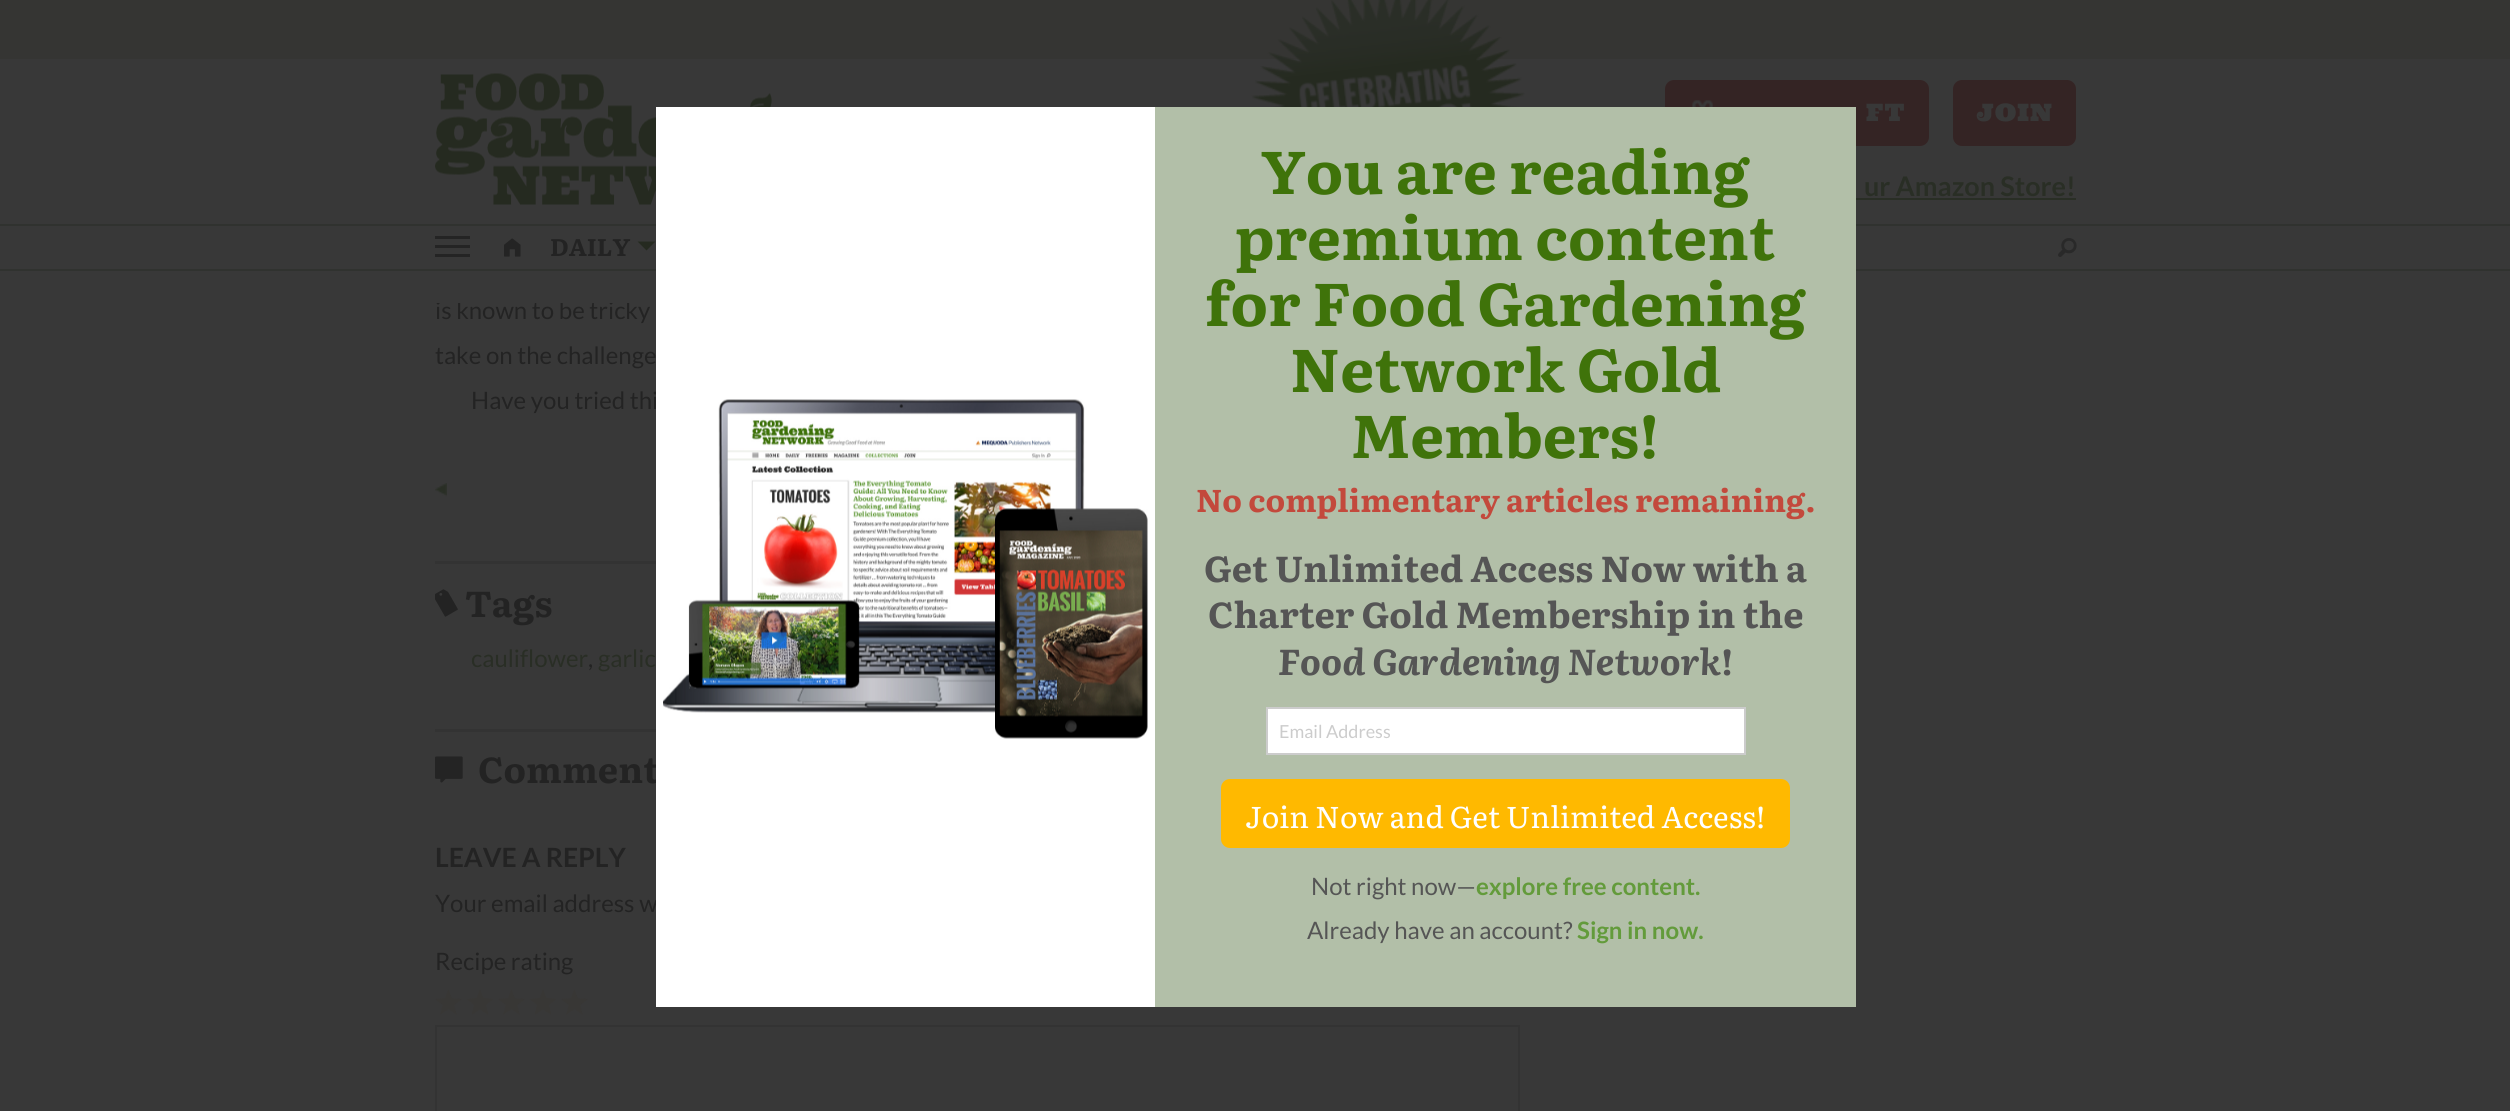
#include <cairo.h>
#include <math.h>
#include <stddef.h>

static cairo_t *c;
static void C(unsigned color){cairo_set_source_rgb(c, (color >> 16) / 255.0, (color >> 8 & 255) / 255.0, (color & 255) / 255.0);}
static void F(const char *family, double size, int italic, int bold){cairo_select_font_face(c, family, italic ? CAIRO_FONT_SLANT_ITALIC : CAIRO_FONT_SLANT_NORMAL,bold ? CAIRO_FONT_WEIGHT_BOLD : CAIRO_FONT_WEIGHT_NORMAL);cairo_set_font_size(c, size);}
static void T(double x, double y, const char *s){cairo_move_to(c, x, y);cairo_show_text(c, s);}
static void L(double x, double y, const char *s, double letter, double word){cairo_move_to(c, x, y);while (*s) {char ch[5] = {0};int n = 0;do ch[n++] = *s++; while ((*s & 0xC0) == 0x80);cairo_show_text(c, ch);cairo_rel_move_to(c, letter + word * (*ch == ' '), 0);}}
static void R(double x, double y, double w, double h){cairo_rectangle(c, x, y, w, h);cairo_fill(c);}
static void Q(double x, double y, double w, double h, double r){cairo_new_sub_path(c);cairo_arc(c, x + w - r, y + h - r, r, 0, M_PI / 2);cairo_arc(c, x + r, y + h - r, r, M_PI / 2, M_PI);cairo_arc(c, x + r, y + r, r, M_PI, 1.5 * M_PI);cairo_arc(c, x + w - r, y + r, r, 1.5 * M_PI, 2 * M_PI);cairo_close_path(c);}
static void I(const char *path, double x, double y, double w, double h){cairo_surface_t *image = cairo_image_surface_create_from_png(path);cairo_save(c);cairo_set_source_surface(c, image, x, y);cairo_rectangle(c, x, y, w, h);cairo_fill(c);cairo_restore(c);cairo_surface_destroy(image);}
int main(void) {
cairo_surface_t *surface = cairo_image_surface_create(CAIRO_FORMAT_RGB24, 2510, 1111);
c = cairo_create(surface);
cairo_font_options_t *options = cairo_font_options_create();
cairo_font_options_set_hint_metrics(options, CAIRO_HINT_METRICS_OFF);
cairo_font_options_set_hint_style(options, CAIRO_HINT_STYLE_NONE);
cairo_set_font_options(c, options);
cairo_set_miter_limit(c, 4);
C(0x383838);
cairo_paint(c);
F("Lato",24,0,0);
C(0x232323);
T(435,319,"is known to be tricky");
C(0x383838);
R(436,301,194,2);
C(0x353533);
R(0,0,2510,59);
I("1.png",1251,0,274,107);
I("2.png",435,73,337,132);
C(0x342424);
Q(1665,80,264,66,9);
cairo_fill(c);
I("3.png",1689,100,27,7);
F("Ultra",24,0,0);
C(0x383838);
L(1866,121,"FT",1,0);
C(0x342424);
Q(1953,80,123,66,9);
cairo_fill(c);
C(0x383838);
L(1976,121,"JOIN",1,0);
F("Lato",27,0,1);
C(0x292e25);
T(1864,196,"ur Amazon Store!");
R(1856,198,220,2);
C(0x30322f);
R(0,224,2510,2);
R(0,269,2510,2);
C(0x242424);
R(435,254,35,3);
R(435,245,35,3);
R(435,236,35,3);
I("4.png",504,238,17,19);
F("Literata",24,0,1);
C(0x232323);
T(550,256,"DAILY");
C(0x252a20);
cairo_new_path(c);
cairo_move_to(c,637.5,241.5);
cairo_line_to(c,655.5,241.5);
cairo_line_to(c,646.5,250.5);
cairo_close_path(c);
cairo_fill(c);
I("5.png",2058,238,19,19);
F("Lato",24,0,0);
C(0x232323);
T(435,364,"take on the challenge");
T(471,409,"Have you tried thi");
I("6.png",435,483,12,14);
C(0x333333);
R(435,561,221,3);
I("7.png",435,589,23,28);
F("Literata",36,0,1);
C(0x232323);
T(465,617,"Tags");
F("Lato",24,0,0);
C(0x292e25);
T(471,667,"cauliflower");
C(0x232323);
T(588,667,",");
C(0x292e25);
T(598,667,"garlic");
C(0x333333);
R(435,729,221,3);
I("8.png",435,756,28,27);
F("Literata",36,0,1);
C(0x232323);
T(478,783,"Comment");
F("Lato",26.5,0,1);
T(435,867,"LEAVE A REPLY");
F("Lato",24,0,0);
T(435,912,"Your email address w");
T(435,970,"Recipe rating");
I("9.png",435,989,27,26);
C(0x383735);
cairo_new_path(c);
cairo_move_to(c,488.5,1015);
cairo_line_to(c,480,1009.5);
cairo_line_to(c,471.5,1015);
cairo_line_to(c,474,1005);
cairo_line_to(c,466.5,999);
cairo_line_to(c,476.5,998);
cairo_line_to(c,480,989);
cairo_line_to(c,483.5,998);
cairo_line_to(c,493.5,999);
cairo_line_to(c,486,1005);
cairo_close_path(c);
cairo_fill(c);
I("9.png",498,989,27,26);
cairo_new_path(c);
cairo_move_to(c,551.5,1015);
cairo_line_to(c,543,1009.5);
cairo_line_to(c,534.5,1015);
cairo_line_to(c,537,1005);
cairo_line_to(c,529.5,999);
cairo_line_to(c,539.5,998);
cairo_line_to(c,543,989);
cairo_line_to(c,546.5,998);
cairo_line_to(c,556.5,999);
cairo_line_to(c,549,1005);
cairo_close_path(c);
cairo_fill(c);
I("9.png",561,989,27,26);
cairo_rectangle(c,436,1026,1083,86);
C(0x333333);
cairo_stroke(c);
C(0xffffff);
R(656,107,499,900);
I("10.png",663,399,485,340);
C(0xb2bfa8);
R(1155,107,701,900);
F("Literata",60,0,1);
C(0x3f730a);
T(1261,194,"You are reading");
T(1235,260,"premium content");
T(1205,326,"for Food Gardening");
T(1290,392,"Network Gold");
T(1351,458,"Members!");
F("Literata",31.5,0,1);
C(0xc3493c);
T(1196,512,"No complimentary articles remaining.");
F("Literata",36,0,1);
C(0x555555);
T(1204,582,"Get Unlimited Access Now with a");
T(1208,628,"Charter Gold Membership in the");
F("Literata",36,1,1);
T(1278,675,"Food Gardening Network");
F("Literata",36,0,1);
T(1721,675,"!");
C(0xffffff);
cairo_rectangle(c,1267,708,478,46);
cairo_fill_preserve(c);
C(0xcccccc);
cairo_stroke(c);
F("Lato",18,0,0);
T(1279,738,"Email Address");
C(0xffb900);
Q(1221,779,569,69,9);
cairo_fill(c);
F("Literata",30,0,0);
C(0xffffff);
T(1245,828,"Join Now and Get Unlimited Access!");
F("Lato",24,0,0);
C(0x555555);
T(1311,895,"Not right now—");
F("Lato",24,0,1);
C(0x639b3b);
T(1476,895,"explore free content.");
F("Lato",24,0,0);
C(0x555555);
T(1307,939,"Already have an account?");
F("Lato",24,0,1);
C(0x639b3b);
T(1577,939,"Sign in now.");
cairo_surface_write_to_png(surface, "o.png");
cairo_font_options_destroy(options);
cairo_destroy(c);
cairo_surface_destroy(surface);
return 0;
}
